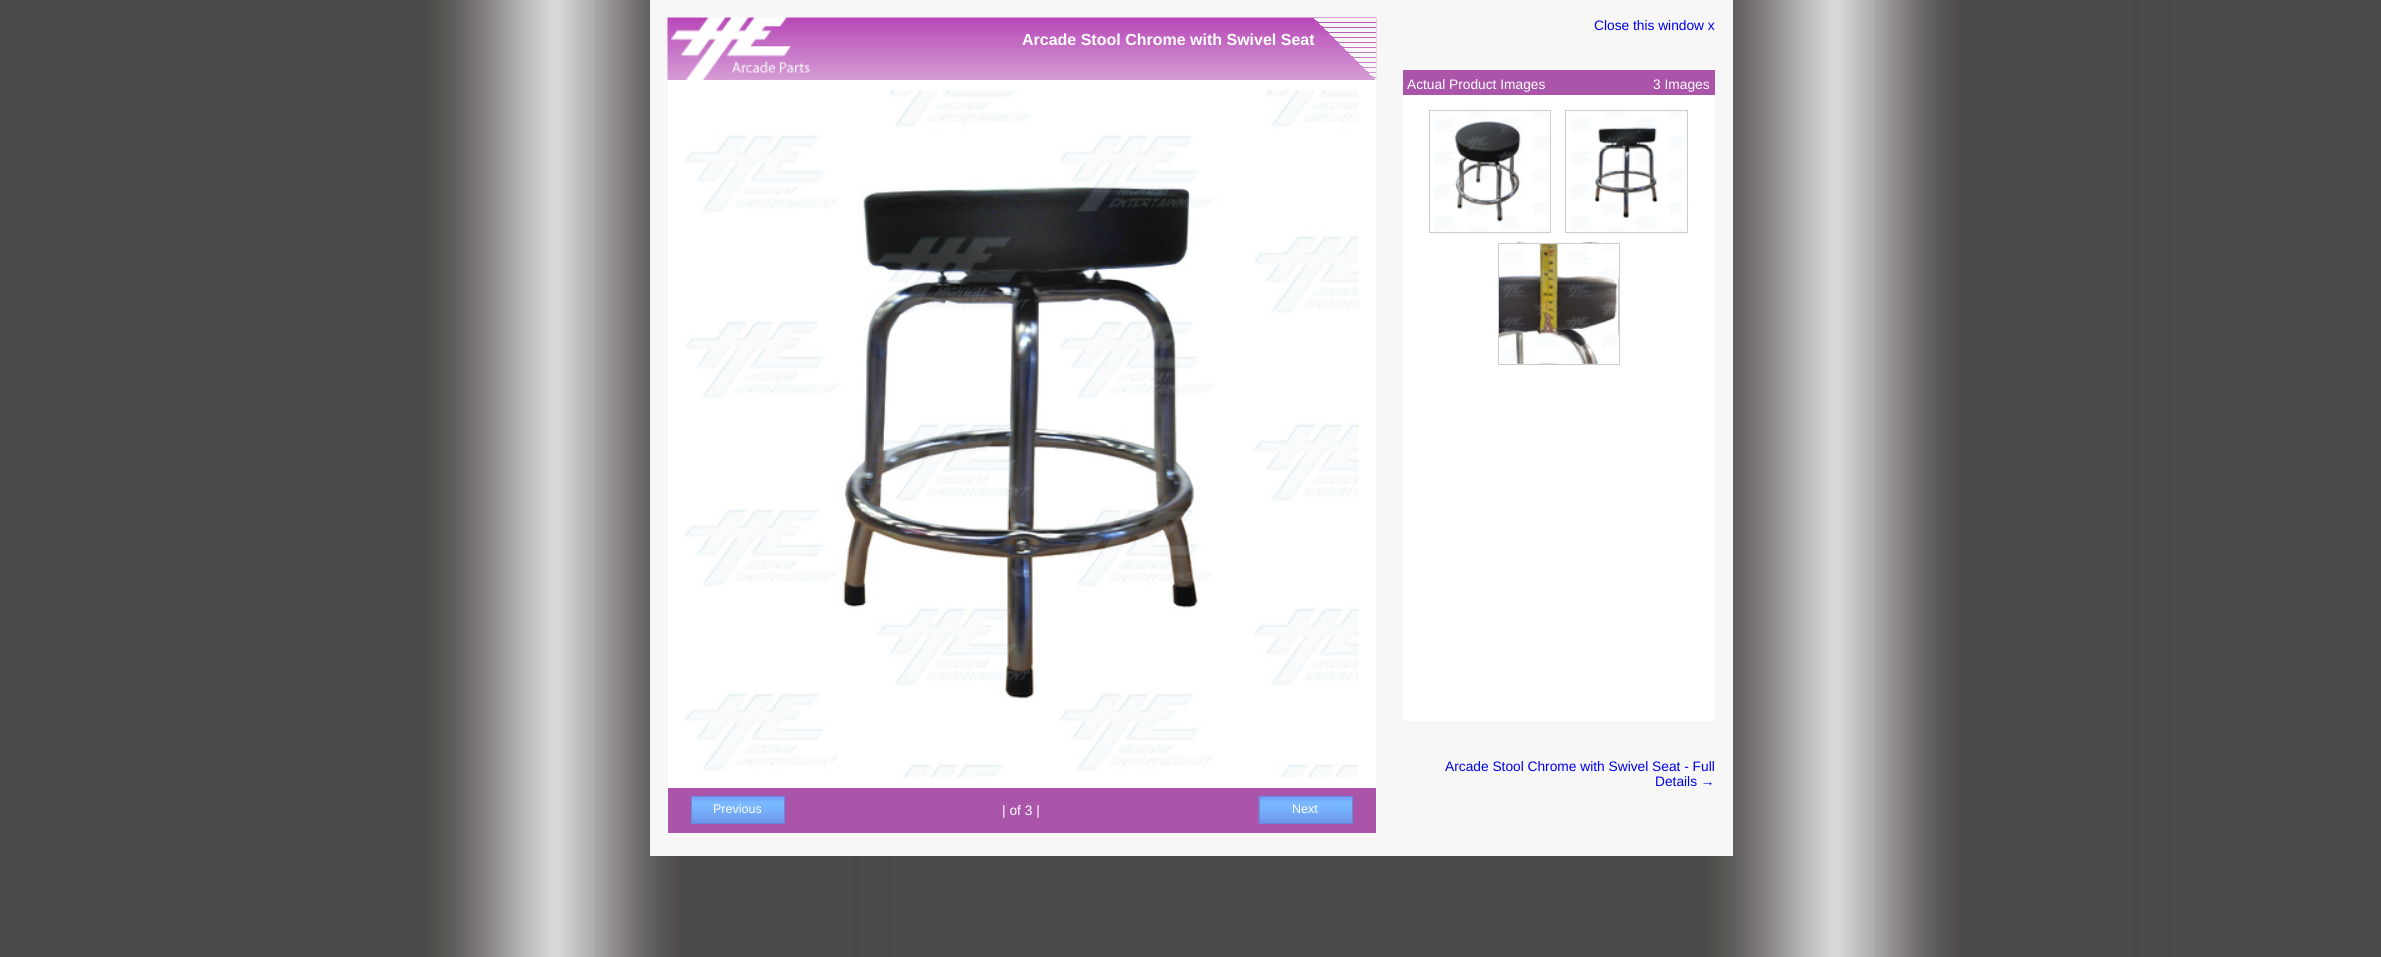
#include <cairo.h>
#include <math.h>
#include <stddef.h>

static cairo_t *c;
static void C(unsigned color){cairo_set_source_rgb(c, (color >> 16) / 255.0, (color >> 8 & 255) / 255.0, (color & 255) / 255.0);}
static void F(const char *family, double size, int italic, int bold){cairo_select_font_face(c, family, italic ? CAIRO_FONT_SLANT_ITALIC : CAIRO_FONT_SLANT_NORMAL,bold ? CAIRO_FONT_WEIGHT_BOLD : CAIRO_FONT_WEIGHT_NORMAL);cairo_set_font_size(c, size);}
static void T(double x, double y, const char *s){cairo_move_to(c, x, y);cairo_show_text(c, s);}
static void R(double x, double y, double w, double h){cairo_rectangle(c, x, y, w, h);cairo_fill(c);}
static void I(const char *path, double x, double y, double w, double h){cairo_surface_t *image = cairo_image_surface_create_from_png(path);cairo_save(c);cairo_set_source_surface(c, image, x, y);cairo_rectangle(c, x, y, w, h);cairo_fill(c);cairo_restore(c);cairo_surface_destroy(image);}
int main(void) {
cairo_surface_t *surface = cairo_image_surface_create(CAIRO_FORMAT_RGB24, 2381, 957);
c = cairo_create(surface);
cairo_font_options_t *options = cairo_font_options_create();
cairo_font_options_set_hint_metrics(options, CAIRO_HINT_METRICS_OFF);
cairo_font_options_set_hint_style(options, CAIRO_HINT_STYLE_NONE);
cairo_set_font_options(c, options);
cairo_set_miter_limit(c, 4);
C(0xffffff);
cairo_paint(c);
I("1.png",0,0,2381,957);
C(0xf7f7f7);
R(650,0,1083,856);
I("2.png",667,17,710,63);
F("Liberation Sans",16,0,1);
C(0xffffff);
T(1022,45,"Arcade Stool Chrome with Swivel Seat");
C(0xf7f7f7);
R(1314,18,62,1);
R(1315,19,61,1);
R(1316,20,60,1);
R(1318,21,58,1);
R(1319,23,57,1);
R(1320,24,56,1);
R(1321,25,55,1);
R(1323,26,53,1);
R(1324,28,52,1);
R(1325,29,51,1);
R(1326,30,50,1);
R(1328,31,48,1);
R(1329,33,47,1);
R(1330,34,46,1);
R(1331,35,45,1);
R(1333,36,43,1);
R(1334,38,42,1);
R(1335,39,41,1);
R(1336,40,40,1);
R(1338,41,38,1);
R(1339,43,37,1);
R(1340,44,36,1);
R(1341,45,35,1);
R(1343,46,33,1);
R(1344,48,32,1);
R(1345,49,31,1);
R(1346,50,30,1);
R(1348,51,28,1);
R(1349,53,27,1);
R(1350,54,26,1);
R(1351,55,25,1);
R(1353,56,23,1);
R(1354,58,22,1);
R(1355,59,21,1);
R(1356,60,20,1);
R(1358,61,18,1);
R(1359,63,17,1);
R(1360,64,16,1);
R(1361,65,15,1);
R(1363,66,13,1);
R(1364,68,12,1);
R(1365,69,11,1);
R(1366,70,10,1);
R(1368,71,8,1);
R(1369,73,7,1);
R(1370,74,6,1);
R(1371,75,5,1);
R(1373,76,4,1);
R(1374,78,3,1);
R(1375,79,1,1);
C(0xffffff);
R(668,80,708,708);
I("3.png",684,90,675,688);
C(0xaa55aa);
R(668,788,708,45);
I("4.png",692,797,92,26);
cairo_rectangle(c,691.5,796.5,93,27);
C(0x6688dd);
cairo_set_line_width(c,1);
cairo_stroke(c);
F("Liberation Sans",12.5,0,0);
C(0xffffff);
T(713,813,"Previous");
F("Liberation Sans",13.75,0,0);
T(1002,815,"| of 3 |");
I("5.png",1258,796,94,28);
cairo_rectangle(c,1259.5,796.5,93,27);
C(0x6688dd);
cairo_stroke(c);
F("Liberation Sans",12.5,0,0);
C(0xffffff);
T(1292,813,"Next");
F("Liberation Sans",13.75,0,0);
C(0x0000ee);
T(1594,30,"Close this window x");
C(0xaa55aa);
R(1403,70,312,25);
C(0xffffff);
T(1407,89,"Actual Product Images");
T(1653,89,"3 Images");
R(1403,95,312,626);
I("6.png",1431,111,118,121);
cairo_rectangle(c,1429.5,110.5,121,122);
C(0xcccccc);
cairo_stroke(c);
I("7.png",1568,111,117,121);
cairo_rectangle(c,1565.5,110.5,122,122);
cairo_stroke(c);
I("8.png",1497,242,123,123);
cairo_rectangle(c,1498.5,243.5,121,121);
cairo_stroke(c);
C(0x0000ee);
T(1445,771,"Arcade Stool Chrome with Swivel Seat - Full");
T(1655,786,"Details →");
cairo_surface_write_to_png(surface, "o.png");
cairo_font_options_destroy(options);
cairo_destroy(c);
cairo_surface_destroy(surface);
return 0;
}
